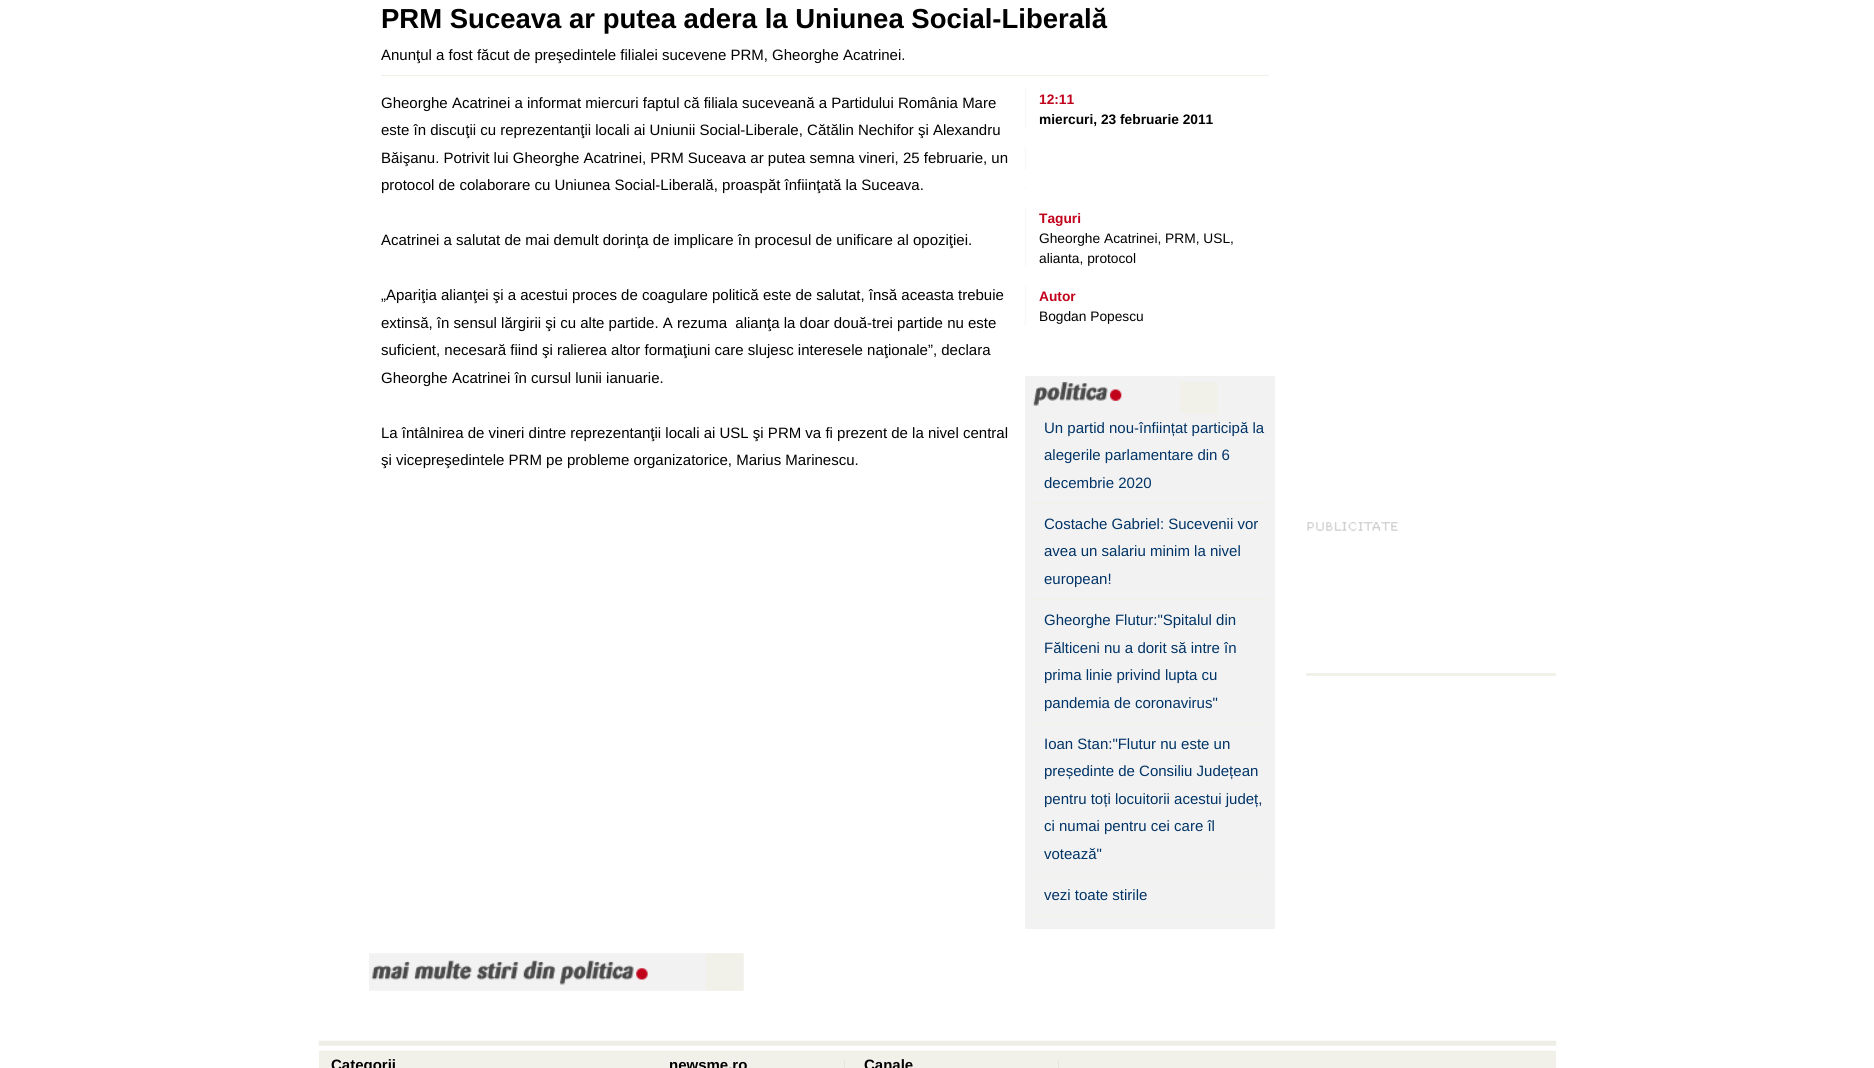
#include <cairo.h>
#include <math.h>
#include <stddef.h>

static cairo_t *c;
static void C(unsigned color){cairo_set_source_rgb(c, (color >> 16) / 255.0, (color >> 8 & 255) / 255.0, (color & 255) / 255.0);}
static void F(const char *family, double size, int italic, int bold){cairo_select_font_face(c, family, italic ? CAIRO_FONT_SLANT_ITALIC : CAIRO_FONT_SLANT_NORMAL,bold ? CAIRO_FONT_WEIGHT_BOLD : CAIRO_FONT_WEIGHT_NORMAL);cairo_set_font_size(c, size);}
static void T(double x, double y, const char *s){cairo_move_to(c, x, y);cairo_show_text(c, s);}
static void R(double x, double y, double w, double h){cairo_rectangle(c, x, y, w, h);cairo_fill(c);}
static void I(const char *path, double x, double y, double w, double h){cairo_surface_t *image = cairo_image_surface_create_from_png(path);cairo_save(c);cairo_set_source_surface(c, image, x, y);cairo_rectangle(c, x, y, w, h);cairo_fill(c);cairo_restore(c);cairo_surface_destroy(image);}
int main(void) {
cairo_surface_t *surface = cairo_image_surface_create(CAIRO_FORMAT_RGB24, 1874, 1068);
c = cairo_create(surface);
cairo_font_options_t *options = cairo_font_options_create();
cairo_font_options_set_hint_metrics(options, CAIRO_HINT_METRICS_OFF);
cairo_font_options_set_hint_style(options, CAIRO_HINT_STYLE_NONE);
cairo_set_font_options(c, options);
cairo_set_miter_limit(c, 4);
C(0xffffff);
cairo_paint(c);
C(0xf1f0e9);
R(381,75,888,1);
F("Liberation Sans",27.5,0,1);
C(0x000000);
T(381,28,"PRM Suceava ar putea adera la Uniunea Social-Liberală");
F("Liberation Sans",15,0,0);
T(381,60,"Anunţul a fost făcut de preşedintele filialei sucevene PRM, Gheorghe Acatrinei.");
T(381,108,"Gheorghe Acatrinei a informat miercuri faptul că filiala suceveană a Partidului România Mare");
T(381,135,"este în discuţii cu reprezentanţii locali ai Uniunii Social-Liberale, Cătălin Nechifor şi Alexandru");
T(381,163,"Băişanu. Potrivit lui Gheorghe Acatrinei, PRM Suceava ar putea semna vineri, 25 februarie, un");
T(381,190,"protocol de colaborare cu Uniunea Social-Liberală, proaspăt înfiinţată la Suceava.");
T(381,245,"Acatrinei a salutat de mai demult dorinţa de implicare în procesul de unificare al opoziţiei.");
T(381,300,"„Apariţia alianţei şi a acestui proces de coagulare politică este de salutat, însă aceasta trebuie");
T(381,328,"extinsă, în sensul lărgirii şi cu alte partide. A rezuma  alianţa la doar două-trei partide nu este");
T(381,355,"suficient, necesară fiind şi ralierea altor formaţiuni care slujesc interesele naţionale”, declara");
T(381,383,"Gheorghe Acatrinei în cursul lunii ianuarie.");
T(381,438,"La întâlnirea de vineri dintre reprezentanţii locali ai USL şi PRM va fi prezent de la nivel central");
T(381,465,"şi vicepreşedintele PRM pe probleme organizatorice, Marius Marinescu.");
cairo_new_path(c);
cairo_move_to(c,1025.5,89);
cairo_line_to(c,1025.5,129);
C(0xf1f0e9);
cairo_set_line_width(c,1.2);
cairo_set_dash(c,(double[]){1.25,1.25},2,0);
cairo_stroke(c);
F("Liberation Sans",13.75,0,1);
C(0xc1021b);
T(1039,104,"12:11");
C(0x000000);
T(1039,124,"miercuri, 23 februarie 2011");
cairo_new_path(c);
cairo_move_to(c,1025.5,147.5);
cairo_line_to(c,1025.5,169);
C(0xf1f0e9);
cairo_stroke(c);
R(1025,188,1,1);
cairo_new_path(c);
cairo_move_to(c,1025.5,207.5);
cairo_line_to(c,1025.5,267.5);
cairo_stroke(c);
C(0xc1021b);
T(1039,223,"Taguri");
F("Liberation Sans",13.75,0,0);
C(0x000000);
T(1039,243,"Gheorghe Acatrinei, PRM, USL,");
T(1039,263,"alianta, protocol");
cairo_new_path(c);
cairo_move_to(c,1025.5,286);
cairo_line_to(c,1025.5,326);
C(0xf1f0e9);
cairo_stroke(c);
F("Liberation Sans",13.75,0,1);
C(0xc1021b);
T(1039,301,"Autor");
F("Liberation Sans",13.75,0,0);
C(0x000000);
T(1039,321,"Bogdan Popescu");
C(0xf2f2f2);
R(1025,376,250,553);
I("1.png",1033,382,185,31);
C(0xf1f0e9);
R(1031,503,238,1);
F("Liberation Sans",15,0,0);
C(0x003366);
T(1044,433,"Un partid nou-înființat participă la");
T(1044,460,"alegerile parlamentare din 6");
T(1044,488,"decembrie 2020");
C(0xf1f0e9);
R(1031,599,238,1);
C(0x003366);
T(1044,529,"Costache Gabriel: Sucevenii vor");
T(1044,556,"avea un salariu minim la nivel");
T(1044,584,"european!");
C(0xf1f0e9);
R(1031,723,238,1);
C(0x003366);
T(1044,625,"Gheorghe Flutur:\"Spitalul din");
T(1044,653,"Fălticeni nu a dorit să intre în");
T(1044,680,"prima linie privind lupta cu");
T(1044,708,"pandemia de coronavirus\"");
C(0xf1f0e9);
R(1031,874,238,1);
C(0x003366);
T(1044,749,"Ioan Stan:\"Flutur nu este un");
T(1044,776,"președinte de Consiliu Județean");
T(1044,804,"pentru toți locuitorii acestui județ,");
T(1044,831,"ci numai pentru cei care îl");
T(1044,859,"votează\"");
C(0xf1f0e9);
R(1031,915,238,1);
C(0x003366);
T(1044,900,"vezi toate stirile");
I("2.png",369,953,375,38);
I("3.png",1307,522,91,9);
C(0xf1f0e9);
R(1306,673,250,3);
R(319,1050,1237,18);
I("4.png",318,1040,1239,11);
F("Liberation Sans",15,0,1);
C(0x000000);
T(331,1070,"Categorii");
T(669,1070,"newsme.ro");
C(0xe7e6da);
R(844,1060,1,8);
C(0x000000);
T(864,1070,"Canale");
C(0xe7e6da);
R(1058,1060,1,8);
cairo_surface_write_to_png(surface, "o.png");
cairo_font_options_destroy(options);
cairo_destroy(c);
cairo_surface_destroy(surface);
return 0;
}
